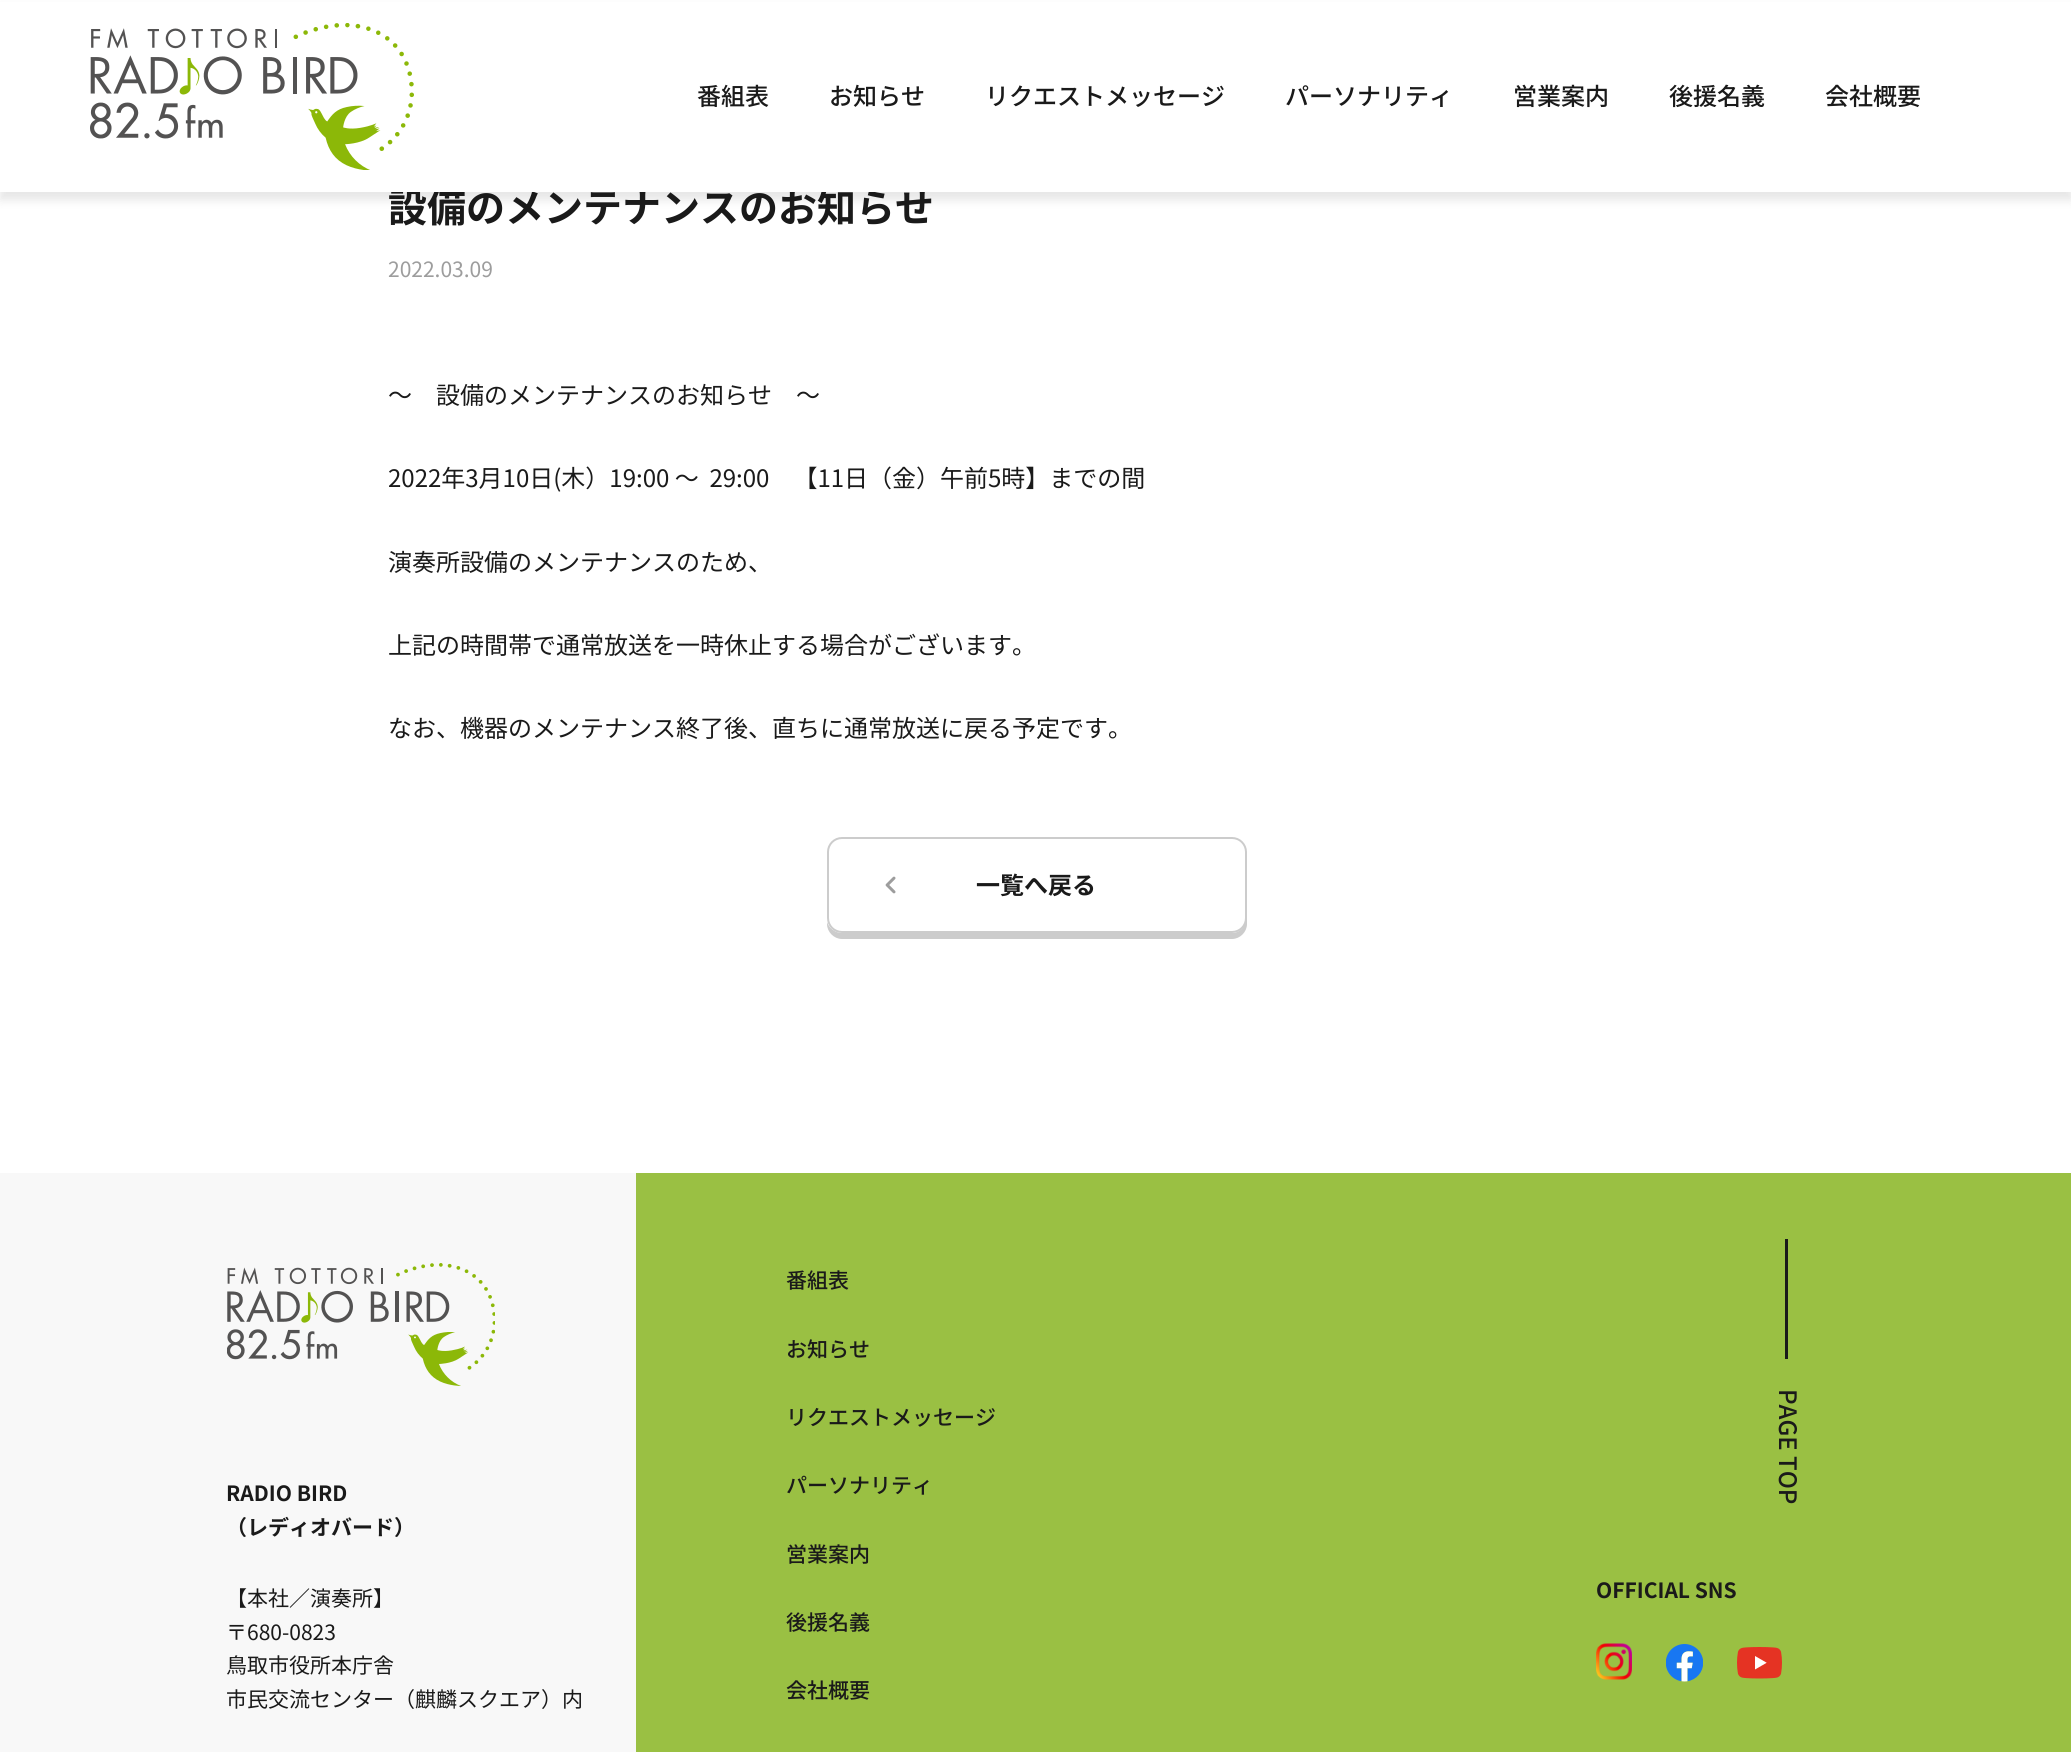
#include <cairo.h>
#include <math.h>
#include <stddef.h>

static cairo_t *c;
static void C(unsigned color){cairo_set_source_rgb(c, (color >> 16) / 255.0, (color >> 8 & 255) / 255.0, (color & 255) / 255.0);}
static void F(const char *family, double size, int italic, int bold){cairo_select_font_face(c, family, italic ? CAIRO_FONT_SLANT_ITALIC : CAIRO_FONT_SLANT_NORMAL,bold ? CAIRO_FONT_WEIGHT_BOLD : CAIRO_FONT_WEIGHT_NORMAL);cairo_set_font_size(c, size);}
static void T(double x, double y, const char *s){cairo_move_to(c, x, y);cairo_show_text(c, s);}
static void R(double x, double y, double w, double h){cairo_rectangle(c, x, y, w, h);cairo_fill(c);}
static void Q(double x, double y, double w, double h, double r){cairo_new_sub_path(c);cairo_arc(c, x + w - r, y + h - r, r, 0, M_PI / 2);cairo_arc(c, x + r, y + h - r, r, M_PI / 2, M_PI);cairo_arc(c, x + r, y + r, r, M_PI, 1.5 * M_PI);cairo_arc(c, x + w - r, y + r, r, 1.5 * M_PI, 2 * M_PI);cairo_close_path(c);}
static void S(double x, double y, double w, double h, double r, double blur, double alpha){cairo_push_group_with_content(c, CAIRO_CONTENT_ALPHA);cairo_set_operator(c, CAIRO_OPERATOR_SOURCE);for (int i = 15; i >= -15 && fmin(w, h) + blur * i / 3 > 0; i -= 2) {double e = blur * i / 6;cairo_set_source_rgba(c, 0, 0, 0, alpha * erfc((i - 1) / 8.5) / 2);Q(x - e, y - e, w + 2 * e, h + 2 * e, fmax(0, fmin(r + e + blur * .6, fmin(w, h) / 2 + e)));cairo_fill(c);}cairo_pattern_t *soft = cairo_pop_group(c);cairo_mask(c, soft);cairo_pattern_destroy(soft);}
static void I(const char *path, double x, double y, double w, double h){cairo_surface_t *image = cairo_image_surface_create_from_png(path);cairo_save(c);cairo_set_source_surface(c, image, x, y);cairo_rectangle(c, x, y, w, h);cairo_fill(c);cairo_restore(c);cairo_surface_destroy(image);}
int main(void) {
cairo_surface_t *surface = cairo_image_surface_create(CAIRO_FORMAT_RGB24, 2071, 1752);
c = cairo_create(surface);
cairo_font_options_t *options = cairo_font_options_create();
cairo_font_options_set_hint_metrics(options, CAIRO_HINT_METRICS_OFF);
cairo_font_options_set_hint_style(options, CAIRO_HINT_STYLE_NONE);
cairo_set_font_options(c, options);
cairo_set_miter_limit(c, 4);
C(0xffffff);
cairo_paint(c);
C(0x000000);
S(0,8,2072,192,0,5,.1);
F("Noto Sans JP",39,0,1);
C(0x1a1a1a);
T(388,222,"設備のメンテナンスのお知らせ");
C(0xffffff);
R(0,2,2071,190);
I("1.png",90,23,324,147);
F("Noto Sans JP Medium",24,0,0);
C(0x1a1a1a);
T(697,105,"番組表");
T(829,105,"お知らせ");
T(985,105,"リクエストメッセージ");
T(1285,105,"パーソナリティ");
T(1513,105,"営業案内");
T(1669,105,"後援名義");
T(1825,105,"会社概要");
F("Noto Sans JP",21,0,0);
C(0x9d9d9d);
T(388,277,"2022.03.09");
F("Noto Sans JP",24,0,0);
C(0x1a1a1a);
T(388,404,"～　設備のメンテナンスのお知らせ　～");
T(388,487,"2022年3月10日(木）19:00 ～  29:00　【11日（金）午前5時】までの間");
T(388,571,"演奏所設備のメンテナンスのため、");
T(388,654,"上記の時間帯で通常放送を一時休止する場合がございます。");
T(388,737,"なお、機器のメンテナンス終了後、直ちに通常放送に戻る予定です。");
C(0xcccccc);
cairo_new_path(c);
cairo_move_to(c,827,922);
cairo_line_to(c,827,924);
cairo_curve_to(c,827,932,834,939,842,939);
cairo_line_to(c,1232,939);
cairo_curve_to(c,1240,939,1247,932,1247,924);
cairo_line_to(c,1247,858);
cairo_line_to(c,1246,854);
cairo_line_to(c,1246,918);
cairo_curve_to(c,1246,926,1240,933,1232,933);
cairo_line_to(c,842,933);
cairo_curve_to(c,835,933,829,928,827,922);
cairo_close_path(c);
cairo_fill(c);
C(0xffffff);
Q(828,838,418,94,14);
cairo_fill_preserve(c);
C(0xcccccc);
cairo_stroke(c);
I("2.png",885,876,11,18);
F("Noto Sans JP",24,0,1);
C(0x1a1a1a);
T(976,894,"一覧へ戻る");
C(0x9ac043);
R(636,1173,1435,579);
C(0xf8f8f8);
R(0,1173,636,579);
I("3.png",227,1263,268,123);
F("Noto Sans JP",21,0,1);
C(0x1a1a1a);
T(226,1501,"RADIO BIRD");
T(226,1535,"（レディオバード）");
F("Noto Sans JP",21,0,0);
T(226,1606,"【本社／演奏所】");
T(226,1640,"〒680-0823");
T(226,1673,"鳥取市役所本庁舎");
T(226,1707,"市民交流センター（麒麟スクエア）内");
F("Noto Sans JP Medium",21,0,0);
T(786,1288,"番組表");
T(786,1357,"お知らせ");
T(786,1425,"リクエストメッセージ");
T(786,1493,"パーソナリティ");
T(786,1562,"営業案内");
T(786,1630,"後援名義");
T(786,1698,"会社概要");
R(1785,1239,3,120);
F("Noto Sans JP Medium",24,0,0);
cairo_save(c);
cairo_translate(c,1779,1389);
cairo_rotate(c,90 * M_PI / 180);
T(0,0,"PAGE TOP");
cairo_restore(c);
F("Noto Sans JP",21,0,1);
T(1596,1598,"OFFICIAL SNS");
I("4.png",1596,1643,36,37);
I("5.png",1666,1644,37,38);
I("6.png",1737,1647,45,32);
cairo_surface_write_to_png(surface, "o.png");
cairo_font_options_destroy(options);
cairo_destroy(c);
cairo_surface_destroy(surface);
return 0;
}
